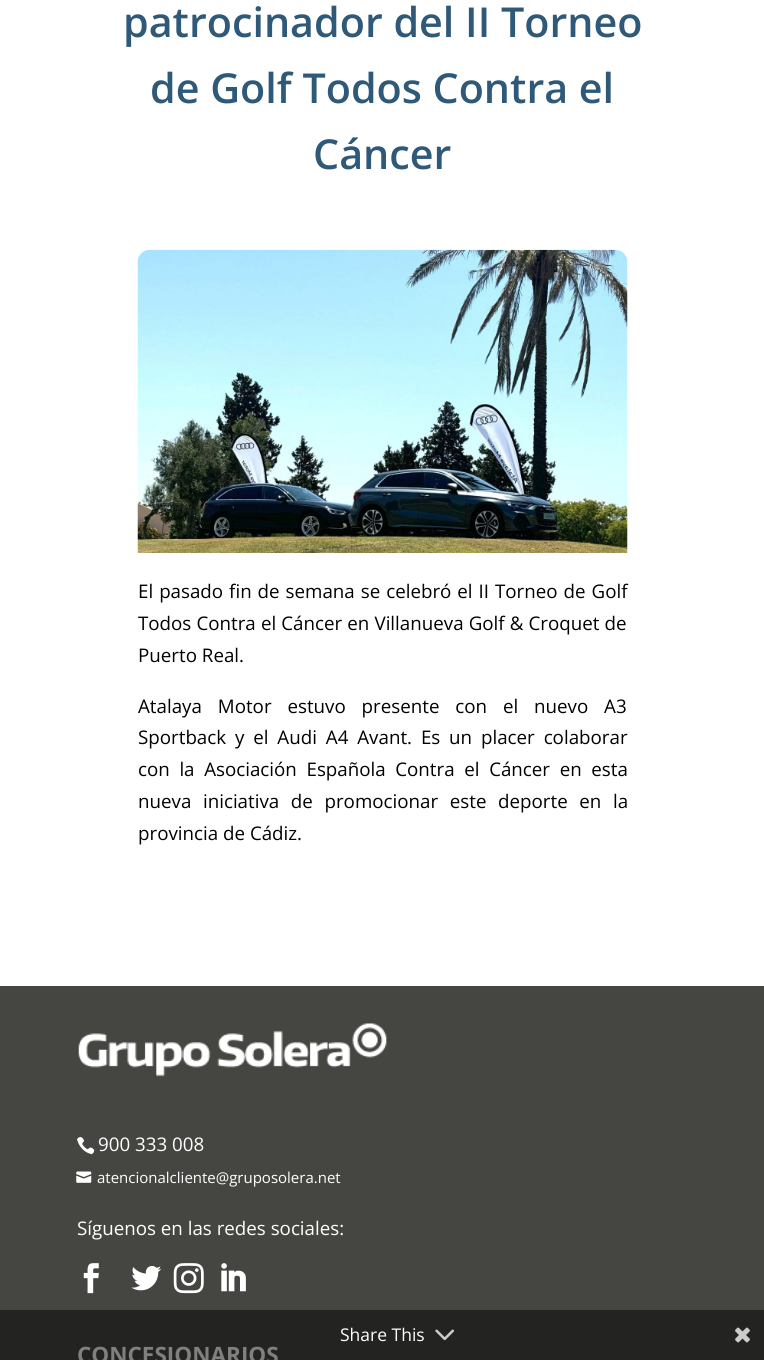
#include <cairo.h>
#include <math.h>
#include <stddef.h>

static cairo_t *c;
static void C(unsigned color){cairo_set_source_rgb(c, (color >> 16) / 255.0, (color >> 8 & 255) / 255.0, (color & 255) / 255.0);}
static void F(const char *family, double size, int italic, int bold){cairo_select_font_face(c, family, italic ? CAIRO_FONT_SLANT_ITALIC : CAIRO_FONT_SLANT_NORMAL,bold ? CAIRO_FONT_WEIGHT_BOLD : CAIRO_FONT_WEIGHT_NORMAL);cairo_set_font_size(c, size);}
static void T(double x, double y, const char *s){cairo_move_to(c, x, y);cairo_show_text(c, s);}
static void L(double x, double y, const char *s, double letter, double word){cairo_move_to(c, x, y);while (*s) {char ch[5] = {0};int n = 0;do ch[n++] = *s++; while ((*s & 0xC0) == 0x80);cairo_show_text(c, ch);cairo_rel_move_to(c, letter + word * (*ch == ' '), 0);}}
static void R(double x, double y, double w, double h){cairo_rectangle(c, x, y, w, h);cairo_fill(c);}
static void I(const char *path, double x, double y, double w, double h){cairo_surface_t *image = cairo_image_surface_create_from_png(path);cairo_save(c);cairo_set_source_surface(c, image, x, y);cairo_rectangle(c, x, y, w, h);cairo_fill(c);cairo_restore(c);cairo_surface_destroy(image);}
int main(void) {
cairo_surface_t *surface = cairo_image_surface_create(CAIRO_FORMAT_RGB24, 764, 1360);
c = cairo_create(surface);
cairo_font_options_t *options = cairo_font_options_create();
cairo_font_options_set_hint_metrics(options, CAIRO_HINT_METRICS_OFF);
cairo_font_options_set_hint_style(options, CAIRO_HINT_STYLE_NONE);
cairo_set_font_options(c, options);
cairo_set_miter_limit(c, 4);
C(0xffffff);
cairo_paint(c);
F("Open Sans SemiBold",41.25,0,0);
C(0x2f5979);
T(123,37,"patrocinador del II Torneo");
T(150,103,"de Golf Todos Contra el");
T(313,169,"Cáncer");
I("1.png",137,249,491,304);
F("Open Sans",18.75,0,0);
C(0x000000);
L(138,598,"El pasado fin de semana se celebró el II Torneo de Golf",0,1.1);
L(138,630,"Todos Contra el Cáncer en Villanueva Golf & Croquet de",0,.25);
T(138,662,"Puerto Real.");
L(138,713,"Atalaya Motor estuvo presente con el nuevo A3",0,11);
L(138,744,"Sportback y el Audi A4 Avant. Es un placer colaborar",0,4);
L(138,776,"con la Asociación Española Contra el Cáncer en esta",0,4.75);
L(138,808,"nueva iniciativa de promocionar este deporte en la",0,6.75);
T(138,840,"provincia de Cádiz.");
C(0x454642);
R(0,986,764,324);
C(0x232321);
R(0,1310,764,50);
I("2.png",78,1023,309,54);
I("3.png",77,1137,18,18);
C(0xffffff);
T(98,1151,"900 333 008");
I("4.png",76,1171,16,12);
F("Open Sans",15,0,0);
T(97,1183,"atencionalcliente@gruposolera.net");
F("Open Sans",18.75,0,0);
T(77,1235,"Síguenos en las redes sociales:");
I("5.png",83,1263,16,31);
I("6.png",131,1266,31,25);
I("7.png",173,1263,31,31);
I("8.png",221,1263,25,29);
F("Open Sans",22.5,0,1);
C(0x808080);
T(77,1363,"CONCESIONARIOS");
F("Open Sans",17.5,0,0);
C(0xffffff);
T(340,1341,"Share This");
I("9.png",435,1329,19,12);
I("10.png",735,1327,15,16);
cairo_surface_write_to_png(surface, "o.png");
cairo_font_options_destroy(options);
cairo_destroy(c);
cairo_surface_destroy(surface);
return 0;
}
